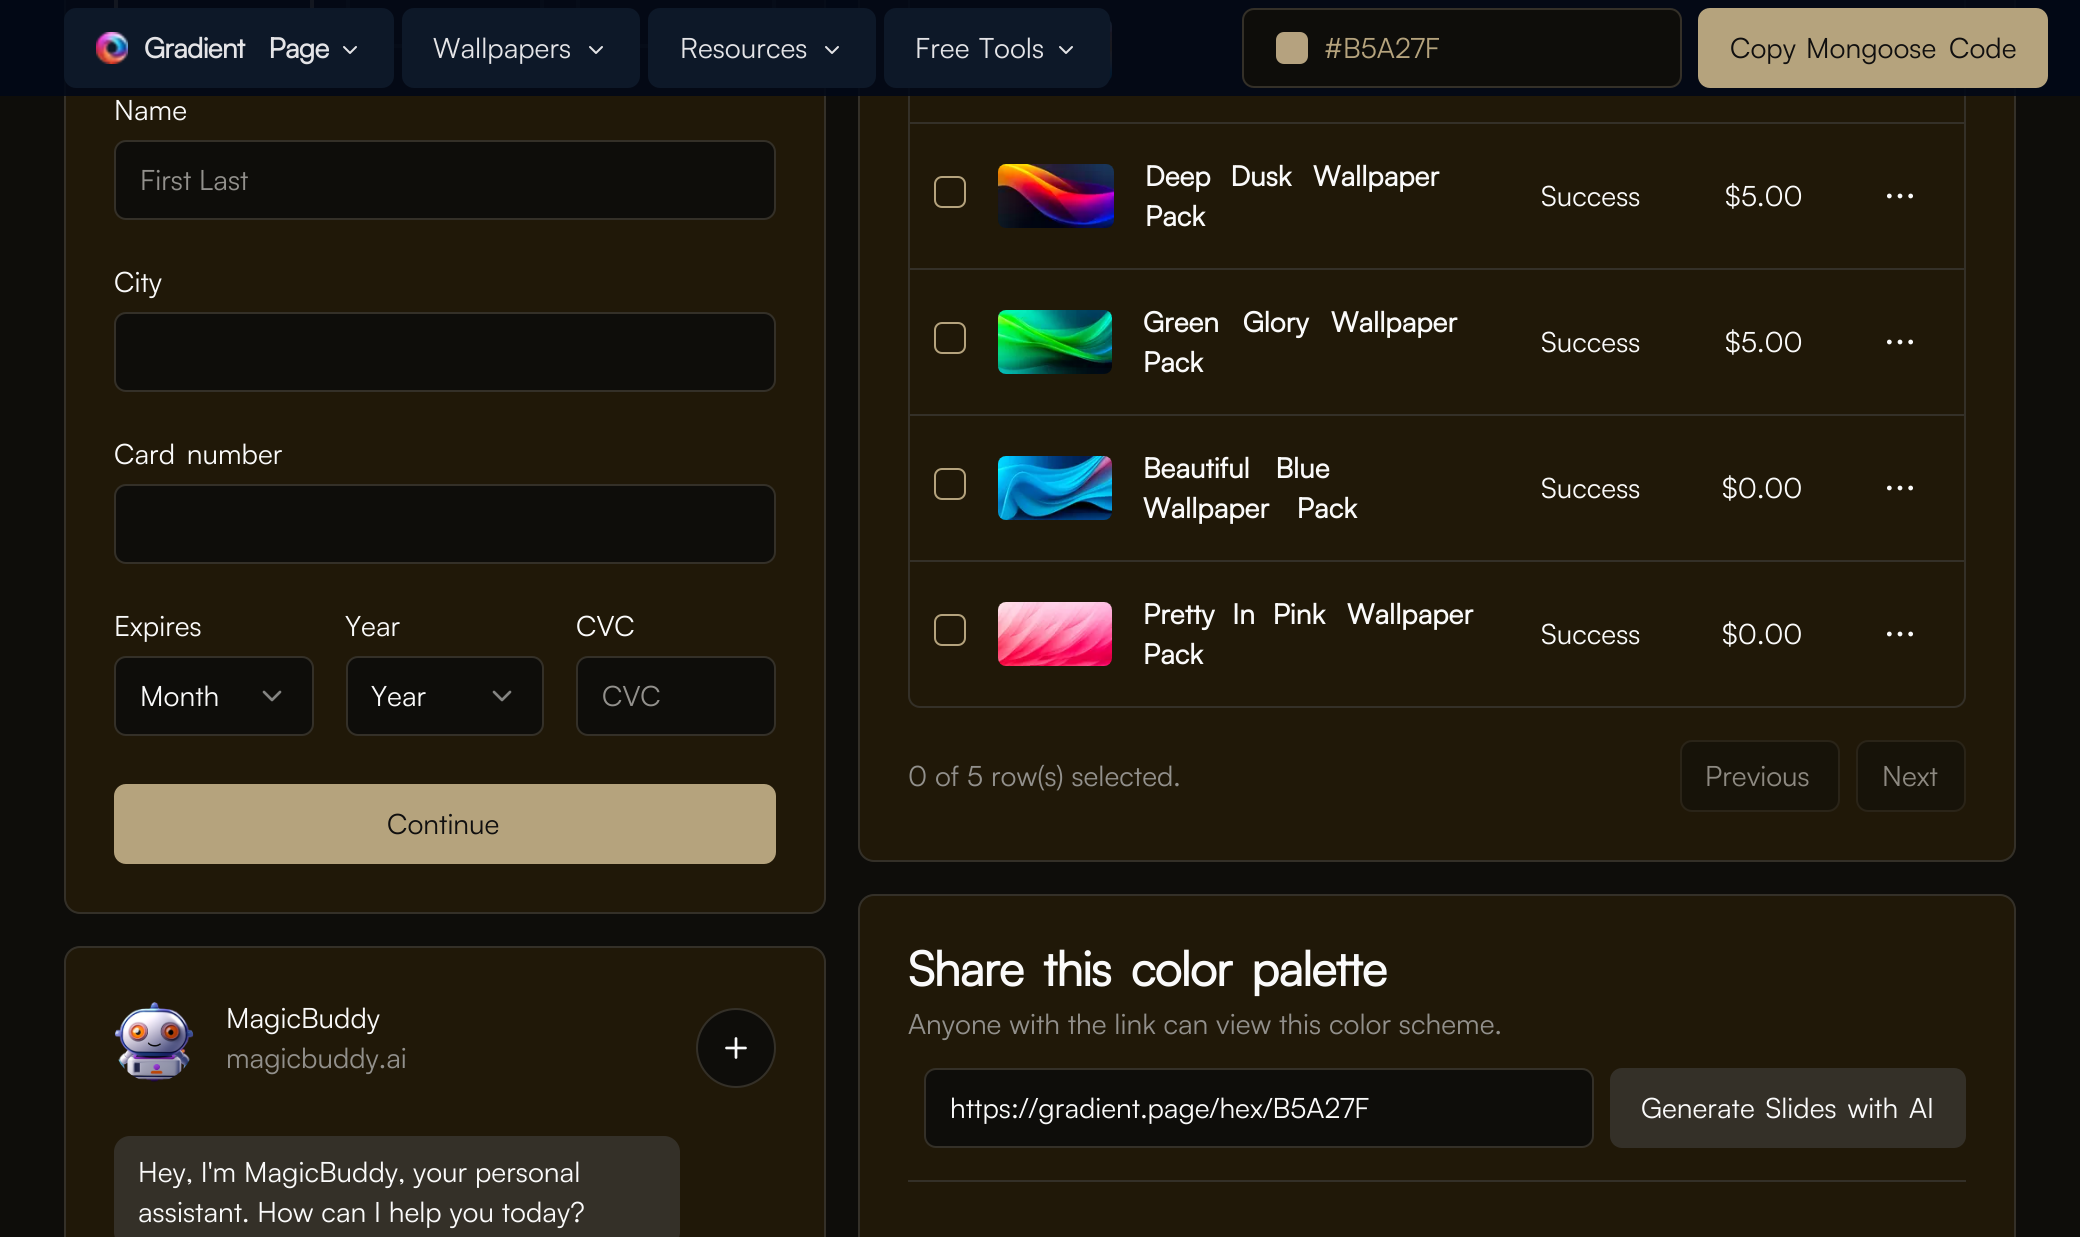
#include <cairo.h>
#include <math.h>
#include <stddef.h>

static cairo_t *c;
static void C(unsigned color){cairo_set_source_rgb(c, (color >> 16) / 255.0, (color >> 8 & 255) / 255.0, (color & 255) / 255.0);}
static void F(const char *family, double size, int italic, int bold){cairo_select_font_face(c, family, italic ? CAIRO_FONT_SLANT_ITALIC : CAIRO_FONT_SLANT_NORMAL,bold ? CAIRO_FONT_WEIGHT_BOLD : CAIRO_FONT_WEIGHT_NORMAL);cairo_set_font_size(c, size);}
static void T(double x, double y, const char *s){cairo_move_to(c, x, y);cairo_show_text(c, s);}
static void L(double x, double y, const char *s, double letter, double word){cairo_move_to(c, x, y);while (*s) {char ch[5] = {0};int n = 0;do ch[n++] = *s++; while ((*s & 0xC0) == 0x80);cairo_show_text(c, ch);cairo_rel_move_to(c, letter + word * (*ch == ' '), 0);}}
static void R(double x, double y, double w, double h){cairo_rectangle(c, x, y, w, h);cairo_fill(c);}
static void Q(double x, double y, double w, double h, double r){cairo_new_sub_path(c);cairo_arc(c, x + w - r, y + h - r, r, 0, M_PI / 2);cairo_arc(c, x + r, y + h - r, r, M_PI / 2, M_PI);cairo_arc(c, x + r, y + r, r, M_PI, 1.5 * M_PI);cairo_arc(c, x + w - r, y + r, r, 1.5 * M_PI, 2 * M_PI);cairo_close_path(c);}
static void I(const char *path, double x, double y, double w, double h){cairo_surface_t *image = cairo_image_surface_create_from_png(path);cairo_save(c);cairo_set_source_surface(c, image, x, y);cairo_rectangle(c, x, y, w, h);cairo_fill(c);cairo_restore(c);cairo_surface_destroy(image);}
int main(void) {
cairo_surface_t *surface = cairo_image_surface_create(CAIRO_FORMAT_RGB24, 2080, 1237);
c = cairo_create(surface);
cairo_font_options_t *options = cairo_font_options_create();
cairo_font_options_set_hint_metrics(options, CAIRO_HINT_METRICS_OFF);
cairo_font_options_set_hint_style(options, CAIRO_HINT_STYLE_NONE);
cairo_set_font_options(c, options);
cairo_set_miter_limit(c, 4);
C(0x0e0d0a);
cairo_paint(c);
C(0x201808);
Q(859,-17,1156,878,15);
cairo_fill_preserve(c);
C(0x343028);
cairo_stroke(c);
Q(909,-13,1056,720,11);
cairo_stroke(c);
C(0x201808);
Q(65,-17,760,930,15);
cairo_fill_preserve(c);
C(0x343028);
cairo_stroke(c);
cairo_rectangle(c,116,-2,196,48);
C(0xb5a37d);
cairo_set_line_width(c,4);
cairo_stroke(c);
cairo_rectangle(c,348,-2,194,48);
C(0x343028);
cairo_stroke(c);
cairo_rectangle(c,578,-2,196,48);
cairo_stroke(c);
I("2.png",1108,20,4,61);
cairo_set_source_rgba(c,0.008,0.031,0.09,0.9);
R(0,0,2080,96);
C(0x0e0d0a);
Q(1243,9,438,78,11);
cairo_fill_preserve(c);
C(0x343028);
cairo_set_line_width(c,2);
cairo_stroke(c);
C(0xb5a27f);
Q(1276,32,32,32,8);
cairo_fill(c);
F("Satoshi",28,0,0);
C(0xb5a37d);
T(1324,58,"#B5A27F");
Q(1698,8,350,80,12);
cairo_fill(c);
C(0x100f0f);
T(1730,58,"Copy");
T(1806,58,"Mongoose");
T(1949,58,"Code");
C(0xfafafa);
T(114,120,"Name");
C(0x0e0d0a);
Q(115,141,660,78,11);
cairo_fill_preserve(c);
C(0x343028);
cairo_stroke(c);
C(0x92908c);
T(140,190,"First Last");
C(0xfafafa);
T(114,292,"City");
C(0x0e0d0a);
Q(115,313,660,78,11);
cairo_fill_preserve(c);
C(0x343028);
cairo_stroke(c);
C(0xfafafa);
L(114,464,"Card number",0,4);
C(0x0e0d0a);
Q(115,485,660,78,11);
cairo_fill_preserve(c);
C(0x343028);
cairo_stroke(c);
C(0xfafafa);
T(114,636,"Expires");
C(0x0e0d0a);
Q(115,657,198,78,11);
cairo_fill_preserve(c);
C(0x343028);
cairo_stroke(c);
C(0xfafafa);
T(140,706,"Month");
cairo_new_path(c);
cairo_move_to(c,264,692);
cairo_line_to(c,272,700);
cairo_line_to(c,280,692);
C(0x848482);
cairo_set_line_width(c,2.7);
cairo_set_line_cap(c,CAIRO_LINE_CAP_ROUND);
cairo_set_line_join(c,CAIRO_LINE_JOIN_ROUND);
cairo_stroke(c);
C(0xfafafa);
T(345,636,"Year");
C(0x0e0d0a);
Q(347,657,196,78,11);
cairo_fill_preserve(c);
C(0x343028);
cairo_set_line_width(c,2);
cairo_set_line_cap(c,CAIRO_LINE_CAP_BUTT);
cairo_set_line_join(c,CAIRO_LINE_JOIN_MITER);
cairo_stroke(c);
C(0xfafafa);
T(371,706,"Year");
cairo_new_path(c);
cairo_move_to(c,494,692);
cairo_line_to(c,502,700);
cairo_line_to(c,510,692);
C(0x848482);
cairo_set_line_width(c,2.7);
cairo_set_line_cap(c,CAIRO_LINE_CAP_ROUND);
cairo_set_line_join(c,CAIRO_LINE_JOIN_ROUND);
cairo_stroke(c);
C(0xfafafa);
T(576,636,"CVC");
C(0x0e0d0a);
Q(577,657,198,78,11);
cairo_fill_preserve(c);
C(0x343028);
cairo_set_line_width(c,2);
cairo_set_line_cap(c,CAIRO_LINE_CAP_BUTT);
cairo_set_line_join(c,CAIRO_LINE_JOIN_MITER);
cairo_stroke(c);
C(0x92908c);
T(602,706,"CVC");
C(0xb5a37d);
Q(114,784,662,80,12);
cairo_fill(c);
C(0x100f0f);
T(387,834,"Continue");
C(0x201808);
Q(65,947,760,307,15);
cairo_fill_preserve(c);
C(0x343028);
cairo_stroke(c);
I("1.png",114,1002,80,80);
C(0xfafafa);
T(226,1028,"MagicBuddy");
C(0x92908c);
T(226,1068,"magicbuddy.ai");
C(0x0e0d0a);
cairo_new_path(c);
cairo_arc(c,736,1048,39,0,2 * M_PI);
cairo_fill_preserve(c);
C(0x343028);
cairo_stroke(c);
cairo_new_path(c);
cairo_move_to(c,726.5,1048);
cairo_line_to(c,745.5,1048);
cairo_move_to(c,736,1038.5);
cairo_line_to(c,736,1057.5);
C(0xfafafa);
cairo_set_line_width(c,2.7);
cairo_set_line_cap(c,CAIRO_LINE_CAP_ROUND);
cairo_set_line_join(c,CAIRO_LINE_JOIN_ROUND);
cairo_stroke(c);
C(0x343028);
Q(114,1136,566,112,16);
cairo_fill(c);
C(0xfafafa);
T(138,1182,"Hey, I'm MagicBuddy, your personal");
T(138,1222,"assistant. How can I help you today?");
C(0x343028);
R(910,122,1054,2);
R(910,268,1054,2);
Q(935,177,30,30,7);
C(0xb5a37d);
cairo_set_line_width(c,2);
cairo_set_line_cap(c,CAIRO_LINE_CAP_BUTT);
cairo_set_line_join(c,CAIRO_LINE_JOIN_MITER);
cairo_stroke(c);
I("3.png",998,164,116,64);
F("Satoshi",28,0,1);
C(0xfafafa);
L(1145,186,"Deep Dusk",0,12);
T(1313,186,"Wallpaper");
T(1145,226,"Pack");
F("Satoshi",28,0,0);
T(1541,206,"Success");
T(1725,206,"$5.00");
I("4.png",1887,193,26,6);
C(0x343028);
R(910,414,1054,2);
Q(935,323,30,30,7);
C(0xb5a37d);
cairo_stroke(c);
I("5.png",998,310,114,64);
F("Satoshi",28,0,1);
C(0xfafafa);
L(1143,332,"Green Glory",0,16);
T(1331,332,"Wallpaper");
T(1143,372,"Pack");
F("Satoshi",28,0,0);
T(1541,352,"Success");
T(1725,352,"$5.00");
I("4.png",1887,339,26,6);
C(0x343028);
R(910,560,1054,2);
Q(935,469,30,30,7);
C(0xb5a37d);
cairo_stroke(c);
I("6.png",998,456,114,64);
F("Satoshi",28,0,1);
C(0xfafafa);
L(1143,478,"Beautiful Blue",0,18);
L(1143,518,"Wallpaper Pack",0,20);
F("Satoshi",28,0,0);
T(1541,498,"Success");
T(1722,498,"$0.00");
I("4.png",1887,485,26,6);
Q(935,615,30,30,7);
C(0xb5a37d);
cairo_stroke(c);
I("7.png",998,602,114,64);
F("Satoshi",28,0,1);
C(0xfafafa);
L(1143,624,"Pretty In Pink",0,10);
T(1347,624,"Wallpaper");
T(1143,664,"Pack");
F("Satoshi",28,0,0);
T(1541,644,"Success");
T(1722,644,"$0.00");
I("4.png",1887,631,26,6);
C(0x92908c);
T(908,786,"0 of 5 row(s) selected.");
C(0x171309);
Q(1681,741,158,70,11);
cairo_fill_preserve(c);
C(0x2a2418);
cairo_stroke(c);
C(0x8d8981);
T(1705,786,"Previous");
C(0x171309);
Q(1857,741,108,70,11);
cairo_fill_preserve(c);
C(0x2a2418);
cairo_stroke(c);
C(0x8d8981);
T(1882,786,"Next");
C(0x201808);
Q(859,895,1156,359,15);
cairo_fill_preserve(c);
C(0x343028);
cairo_stroke(c);
F("Satoshi",48,0,1);
C(0xfafafa);
L(908,986,"Share this color palette",-1.2,8);
F("Satoshi",28,0,0);
C(0x92908c);
T(908,1034,"Anyone with the link can view this color scheme.");
C(0x0e0d0a);
Q(925,1069,668,78,11);
cairo_fill_preserve(c);
C(0x343028);
cairo_stroke(c);
C(0xfafafa);
T(950,1118,"https://gradient.page/hex/B5A27F");
C(0x343028);
Q(1610,1068,356,80,12);
cairo_fill(c);
C(0xfafafa);
L(1641,1118,"Generate Slides with AI",0,3);
C(0x343028);
R(908,1180,1058,2);
C(0x0d1828);
Q(64,8,330,80,12);
cairo_fill(c);
I("8.png",96,32,32,32);
F("Satoshi",28,0,1);
C(0xe4e4e7);
L(144,58,"Gradient Page",-.75,17);
cairo_new_path(c);
cairo_move_to(c,344,47);
cairo_line_to(c,350,53);
cairo_line_to(c,356,47);
cairo_set_line_cap(c,CAIRO_LINE_CAP_ROUND);
cairo_set_line_join(c,CAIRO_LINE_JOIN_ROUND);
cairo_stroke(c);
C(0x0d1828);
Q(402,8,238,80,12);
cairo_fill(c);
F("Satoshi",28,0,0);
C(0xe4e4e7);
T(433,58,"Wallpapers");
cairo_new_path(c);
cairo_move_to(c,590,47);
cairo_line_to(c,596,53);
cairo_line_to(c,602,47);
cairo_stroke(c);
C(0x0d1828);
Q(648,8,228,80,12);
cairo_fill(c);
C(0xe4e4e7);
T(680,58,"Resources");
cairo_new_path(c);
cairo_move_to(c,826,47);
cairo_line_to(c,832,53);
cairo_line_to(c,838,47);
cairo_stroke(c);
C(0x0d1828);
Q(884,8,226,80,12);
cairo_fill(c);
C(0xe4e4e7);
T(915,58,"Free");
T(979,58,"Tools");
cairo_new_path(c);
cairo_move_to(c,1060,47);
cairo_line_to(c,1066,53);
cairo_line_to(c,1072,47);
cairo_stroke(c);
cairo_surface_write_to_png(surface, "o.png");
cairo_font_options_destroy(options);
cairo_destroy(c);
cairo_surface_destroy(surface);
return 0;
}
